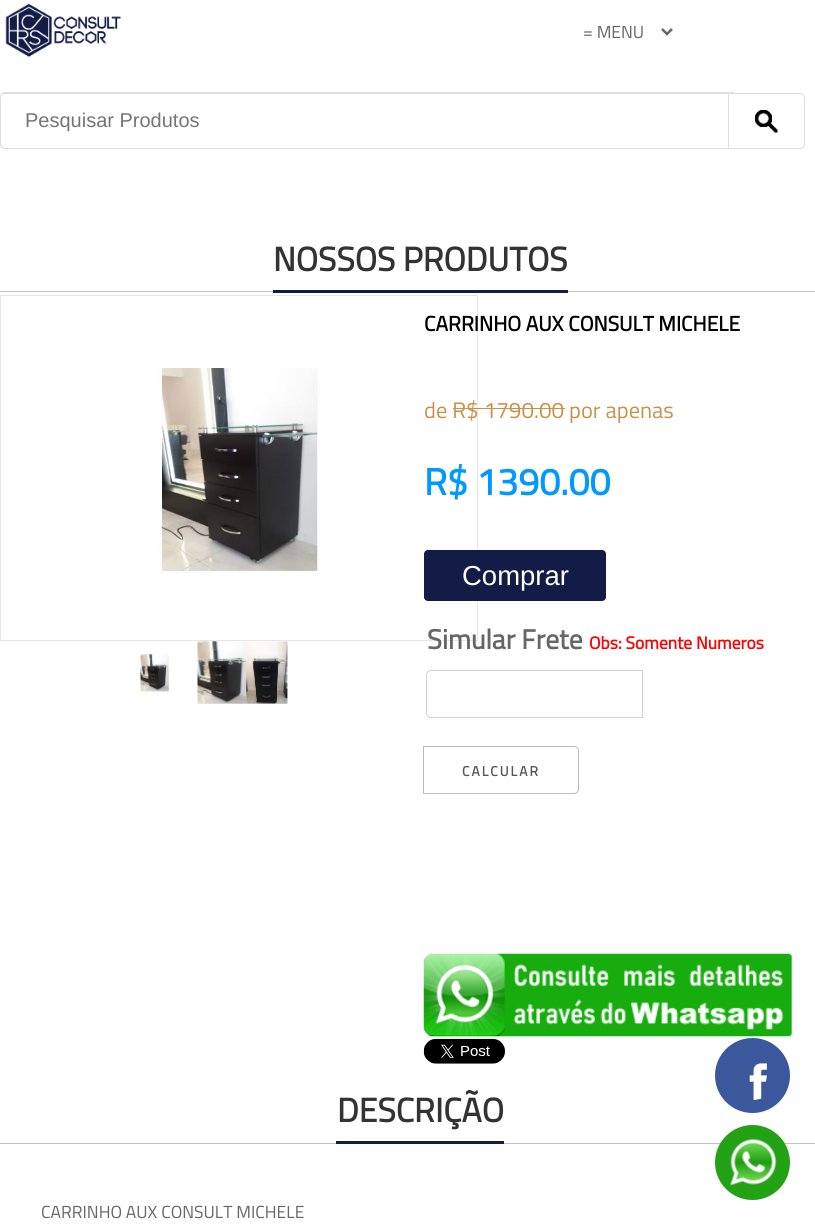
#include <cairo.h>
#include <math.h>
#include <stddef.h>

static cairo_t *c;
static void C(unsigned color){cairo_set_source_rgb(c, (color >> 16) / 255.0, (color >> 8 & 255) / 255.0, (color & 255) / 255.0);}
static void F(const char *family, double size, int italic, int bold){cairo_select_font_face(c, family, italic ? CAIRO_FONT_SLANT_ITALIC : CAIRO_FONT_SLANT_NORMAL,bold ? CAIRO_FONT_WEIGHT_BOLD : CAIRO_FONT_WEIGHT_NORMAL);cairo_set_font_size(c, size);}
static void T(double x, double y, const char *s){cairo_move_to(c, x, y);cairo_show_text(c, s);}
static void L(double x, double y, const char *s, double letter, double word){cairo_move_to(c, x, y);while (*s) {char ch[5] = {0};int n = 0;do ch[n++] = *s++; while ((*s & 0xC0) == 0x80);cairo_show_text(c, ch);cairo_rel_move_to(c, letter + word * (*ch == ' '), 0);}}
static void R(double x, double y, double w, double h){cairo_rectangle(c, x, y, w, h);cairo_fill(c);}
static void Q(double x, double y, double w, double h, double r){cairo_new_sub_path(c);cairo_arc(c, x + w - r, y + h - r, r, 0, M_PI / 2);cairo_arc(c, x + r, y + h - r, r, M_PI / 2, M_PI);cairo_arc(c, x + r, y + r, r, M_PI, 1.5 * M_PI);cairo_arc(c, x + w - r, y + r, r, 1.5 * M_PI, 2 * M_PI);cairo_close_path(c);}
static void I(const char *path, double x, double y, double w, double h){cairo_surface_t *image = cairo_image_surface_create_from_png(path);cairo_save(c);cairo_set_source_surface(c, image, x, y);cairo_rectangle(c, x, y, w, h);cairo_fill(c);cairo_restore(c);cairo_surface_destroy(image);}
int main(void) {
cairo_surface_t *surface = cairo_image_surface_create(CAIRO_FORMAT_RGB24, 815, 1224);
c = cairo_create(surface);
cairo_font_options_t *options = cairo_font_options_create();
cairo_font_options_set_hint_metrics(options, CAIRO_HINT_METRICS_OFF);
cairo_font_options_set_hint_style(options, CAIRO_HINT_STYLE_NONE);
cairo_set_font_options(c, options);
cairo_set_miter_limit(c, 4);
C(0xffffff);
cairo_paint(c);
I("1.png",5,3,116,54);
cairo_new_path(c);
cairo_move_to(c,662,29);
cairo_line_to(c,667,34);
cairo_line_to(c,672,29);
C(0x666666);
cairo_set_line_width(c,2.5);
cairo_stroke(c);
F("Titillium Web",17.5,0,0);
T(583,38,"= MENU");
C(0xdedede);
cairo_set_fill_rule(c,CAIRO_FILL_RULE_EVEN_ODD);
cairo_new_path(c);
cairo_move_to(c,5,92);
cairo_line_to(c,734,92);
cairo_line_to(c,734,149);
cairo_line_to(c,5,149);
cairo_curve_to(c,2,149,0,147,0,144);
cairo_line_to(c,0,98);
cairo_curve_to(c,0,95,2,92,5,92);
cairo_close_path(c);
cairo_move_to(c,5,94);
cairo_line_to(c,734,94);
cairo_line_to(c,734,148);
cairo_line_to(c,5,148);
cairo_curve_to(c,3,148,1,146,1,144);
cairo_line_to(c,1,98);
cairo_curve_to(c,1,95,3,94,5,94);
cairo_close_path(c);
cairo_fill(c);
F("Liberation Sans",20,0,0);
C(0x757575);
T(25,127,"Pesquisar Produtos");
I("2.png",755,110,23,23);
cairo_new_path(c);
cairo_move_to(c,728.5,93.5);
cairo_line_to(c,800,93.5);
cairo_curve_to(c,802.5,93.5,804.5,95.5,804.5,98);
cairo_line_to(c,804.5,144);
cairo_curve_to(c,804.5,146.5,802.5,148.5,800,148.5);
cairo_line_to(c,728.5,148.5);
cairo_close_path(c);
C(0xdedede);
cairo_set_line_width(c,1);
cairo_stroke(c);
C(0x3a589b);
cairo_arc(c,752.5,1075.5,37.5,0,2 * M_PI);
cairo_fill(c);
I("3.png",732,1063,35,37);
C(0xc2c2c2);
R(0,1143,815,1);
C(0x23a216);
cairo_arc(c,752.5,1162.5,37.5,0,2 * M_PI);
cairo_fill(c);
I("4.png",730,1139,47,47);
C(0xc2c2c2);
R(0,291,815,1);
F("Titillium Web",33.75,0,1);
C(0x333333);
T(273,271,"NOSSOS PRODUTOS");
C(0x121c46);
R(273,290,295,3);
cairo_rectangle(c,.5,295.5,477,345);
C(0xe6e6e6);
cairo_stroke(c);
I("5.png",155,368,164,205);
I("6.png",140,654,29,38);
I("7.png",197,641,50,63);
I("8.png",246,641,42,63);
F("Titillium Web",21,0,1);
C(0x000000);
T(424,331,"CARRINHO AUX CONSULT MICHELE");
F("Titillium Web",22.5,0,0);
C(0xc79249);
T(424,418,"de R$ 1790.00 por apenas");
R(453,408,112,1);
F("Titillium Web",37.5,0,1);
C(0x0099ff);
T(424,495,"R$ 1390.00");
C(0x121c46);
Q(424,550,182,51,4);
cairo_fill(c);
F("Liberation Sans",27.5,0,0);
C(0xffffff);
T(462,585,"Comprar");
F("Titillium Web",27.5,0,1);
C(0x666666);
T(427,649,"Simular Frete");
F("Titillium Web",17.5,0,1);
C(0xff0000);
T(589,649,"Obs: Somente Numeros");
cairo_new_path(c);
cairo_move_to(c,431,670.5);
cairo_line_to(c,642.5,670.5);
cairo_line_to(c,642.5,717.5);
cairo_line_to(c,431,717.5);
cairo_curve_to(c,428.5,717.5,426.5,715.5,426.5,713);
cairo_line_to(c,426.5,675);
cairo_curve_to(c,426.5,672.5,428.5,670.5,431,670.5);
cairo_close_path(c);
C(0xd1d1d1);
cairo_stroke(c);
cairo_new_path(c);
cairo_move_to(c,423.5,746.5);
cairo_line_to(c,574,746.5);
cairo_curve_to(c,576.5,746.5,578.5,748.5,578.5,751);
cairo_line_to(c,578.5,789);
cairo_curve_to(c,578.5,791.5,576.5,793.5,574,793.5);
cairo_line_to(c,423.5,793.5);
cairo_close_path(c);
C(0xbbbbbb);
cairo_stroke(c);
F("Titillium Web",13.75,0,1);
C(0x555555);
L(462,776,"CALCULAR",2,0);
I("9.png",423,953,369,84);
I("10.png",423,1038,82,26);
F("Titillium Web",33.75,0,1);
C(0x333333);
T(337,1122,"DESCRIÇÃO");
C(0x121c46);
R(336,1141,168,3);
F("Titillium Web",17.5,0,0);
C(0x666666);
T(41,1218,"CARRINHO AUX CONSULT MICHELE");
cairo_surface_write_to_png(surface, "o.png");
cairo_font_options_destroy(options);
cairo_destroy(c);
cairo_surface_destroy(surface);
return 0;
}
